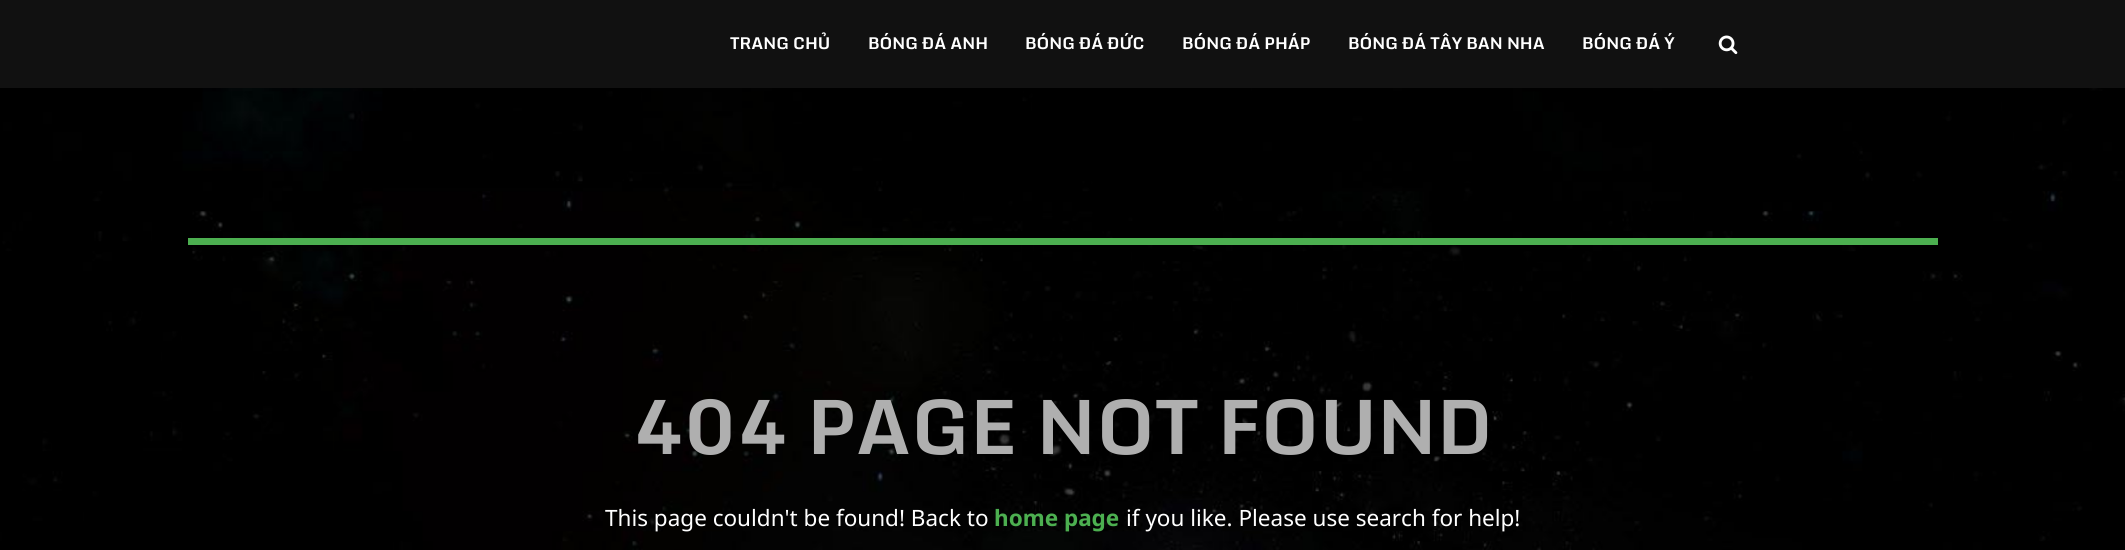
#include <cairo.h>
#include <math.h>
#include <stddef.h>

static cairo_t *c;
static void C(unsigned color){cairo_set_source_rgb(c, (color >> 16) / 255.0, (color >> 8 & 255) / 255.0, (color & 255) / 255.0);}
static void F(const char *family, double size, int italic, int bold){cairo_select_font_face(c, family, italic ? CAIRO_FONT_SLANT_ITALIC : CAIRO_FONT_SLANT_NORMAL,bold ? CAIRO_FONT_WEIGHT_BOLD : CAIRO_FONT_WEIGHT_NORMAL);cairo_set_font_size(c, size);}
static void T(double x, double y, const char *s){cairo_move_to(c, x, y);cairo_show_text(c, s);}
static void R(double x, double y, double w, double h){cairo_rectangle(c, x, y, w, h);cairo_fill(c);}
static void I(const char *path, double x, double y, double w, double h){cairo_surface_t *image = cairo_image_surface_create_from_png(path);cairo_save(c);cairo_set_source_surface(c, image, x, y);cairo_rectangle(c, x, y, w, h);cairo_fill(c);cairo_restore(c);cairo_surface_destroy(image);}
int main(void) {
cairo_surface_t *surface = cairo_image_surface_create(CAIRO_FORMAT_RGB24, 2125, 550);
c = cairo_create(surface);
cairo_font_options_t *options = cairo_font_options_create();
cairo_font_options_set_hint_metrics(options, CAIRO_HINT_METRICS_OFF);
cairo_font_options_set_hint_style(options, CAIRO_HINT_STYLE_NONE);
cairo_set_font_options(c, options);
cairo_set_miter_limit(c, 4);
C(0xffffff);
cairo_paint(c);
I("1.png",0,88,2125,462);
C(0x111111);
R(0,0,2125,88);
F("Monda",16.25,0,1);
C(0xffffff);
T(730,49,"TRANG CHỦ");
T(868,49,"BÓNG ĐÁ ANH");
T(1025,49,"BÓNG ĐÁ ĐỨC");
T(1182,49,"BÓNG ĐÁ PHÁP");
T(1348,49,"BÓNG ĐÁ TÂY BAN NHA");
T(1582,49,"BÓNG ĐÁ Ý");
I("2.png",1718,35,20,20);
C(0x4caf50);
R(188,238,1750,7);
F("Monda",75,0,1);
C(0xafafaf);
T(632,454,"404 PAGE NOT FOUND");
F("Noto Sans",22.5,0,0);
C(0xffffff);
T(605,526,"This page couldn't be found! Back to");
F("Noto Sans",22.5,0,1);
C(0x4caf50);
T(994,526,"home page");
F("Noto Sans",22.5,0,0);
C(0xffffff);
T(1126,526,"if you like. Please use search for help!");
cairo_surface_write_to_png(surface, "o.png");
cairo_font_options_destroy(options);
cairo_destroy(c);
cairo_surface_destroy(surface);
return 0;
}
